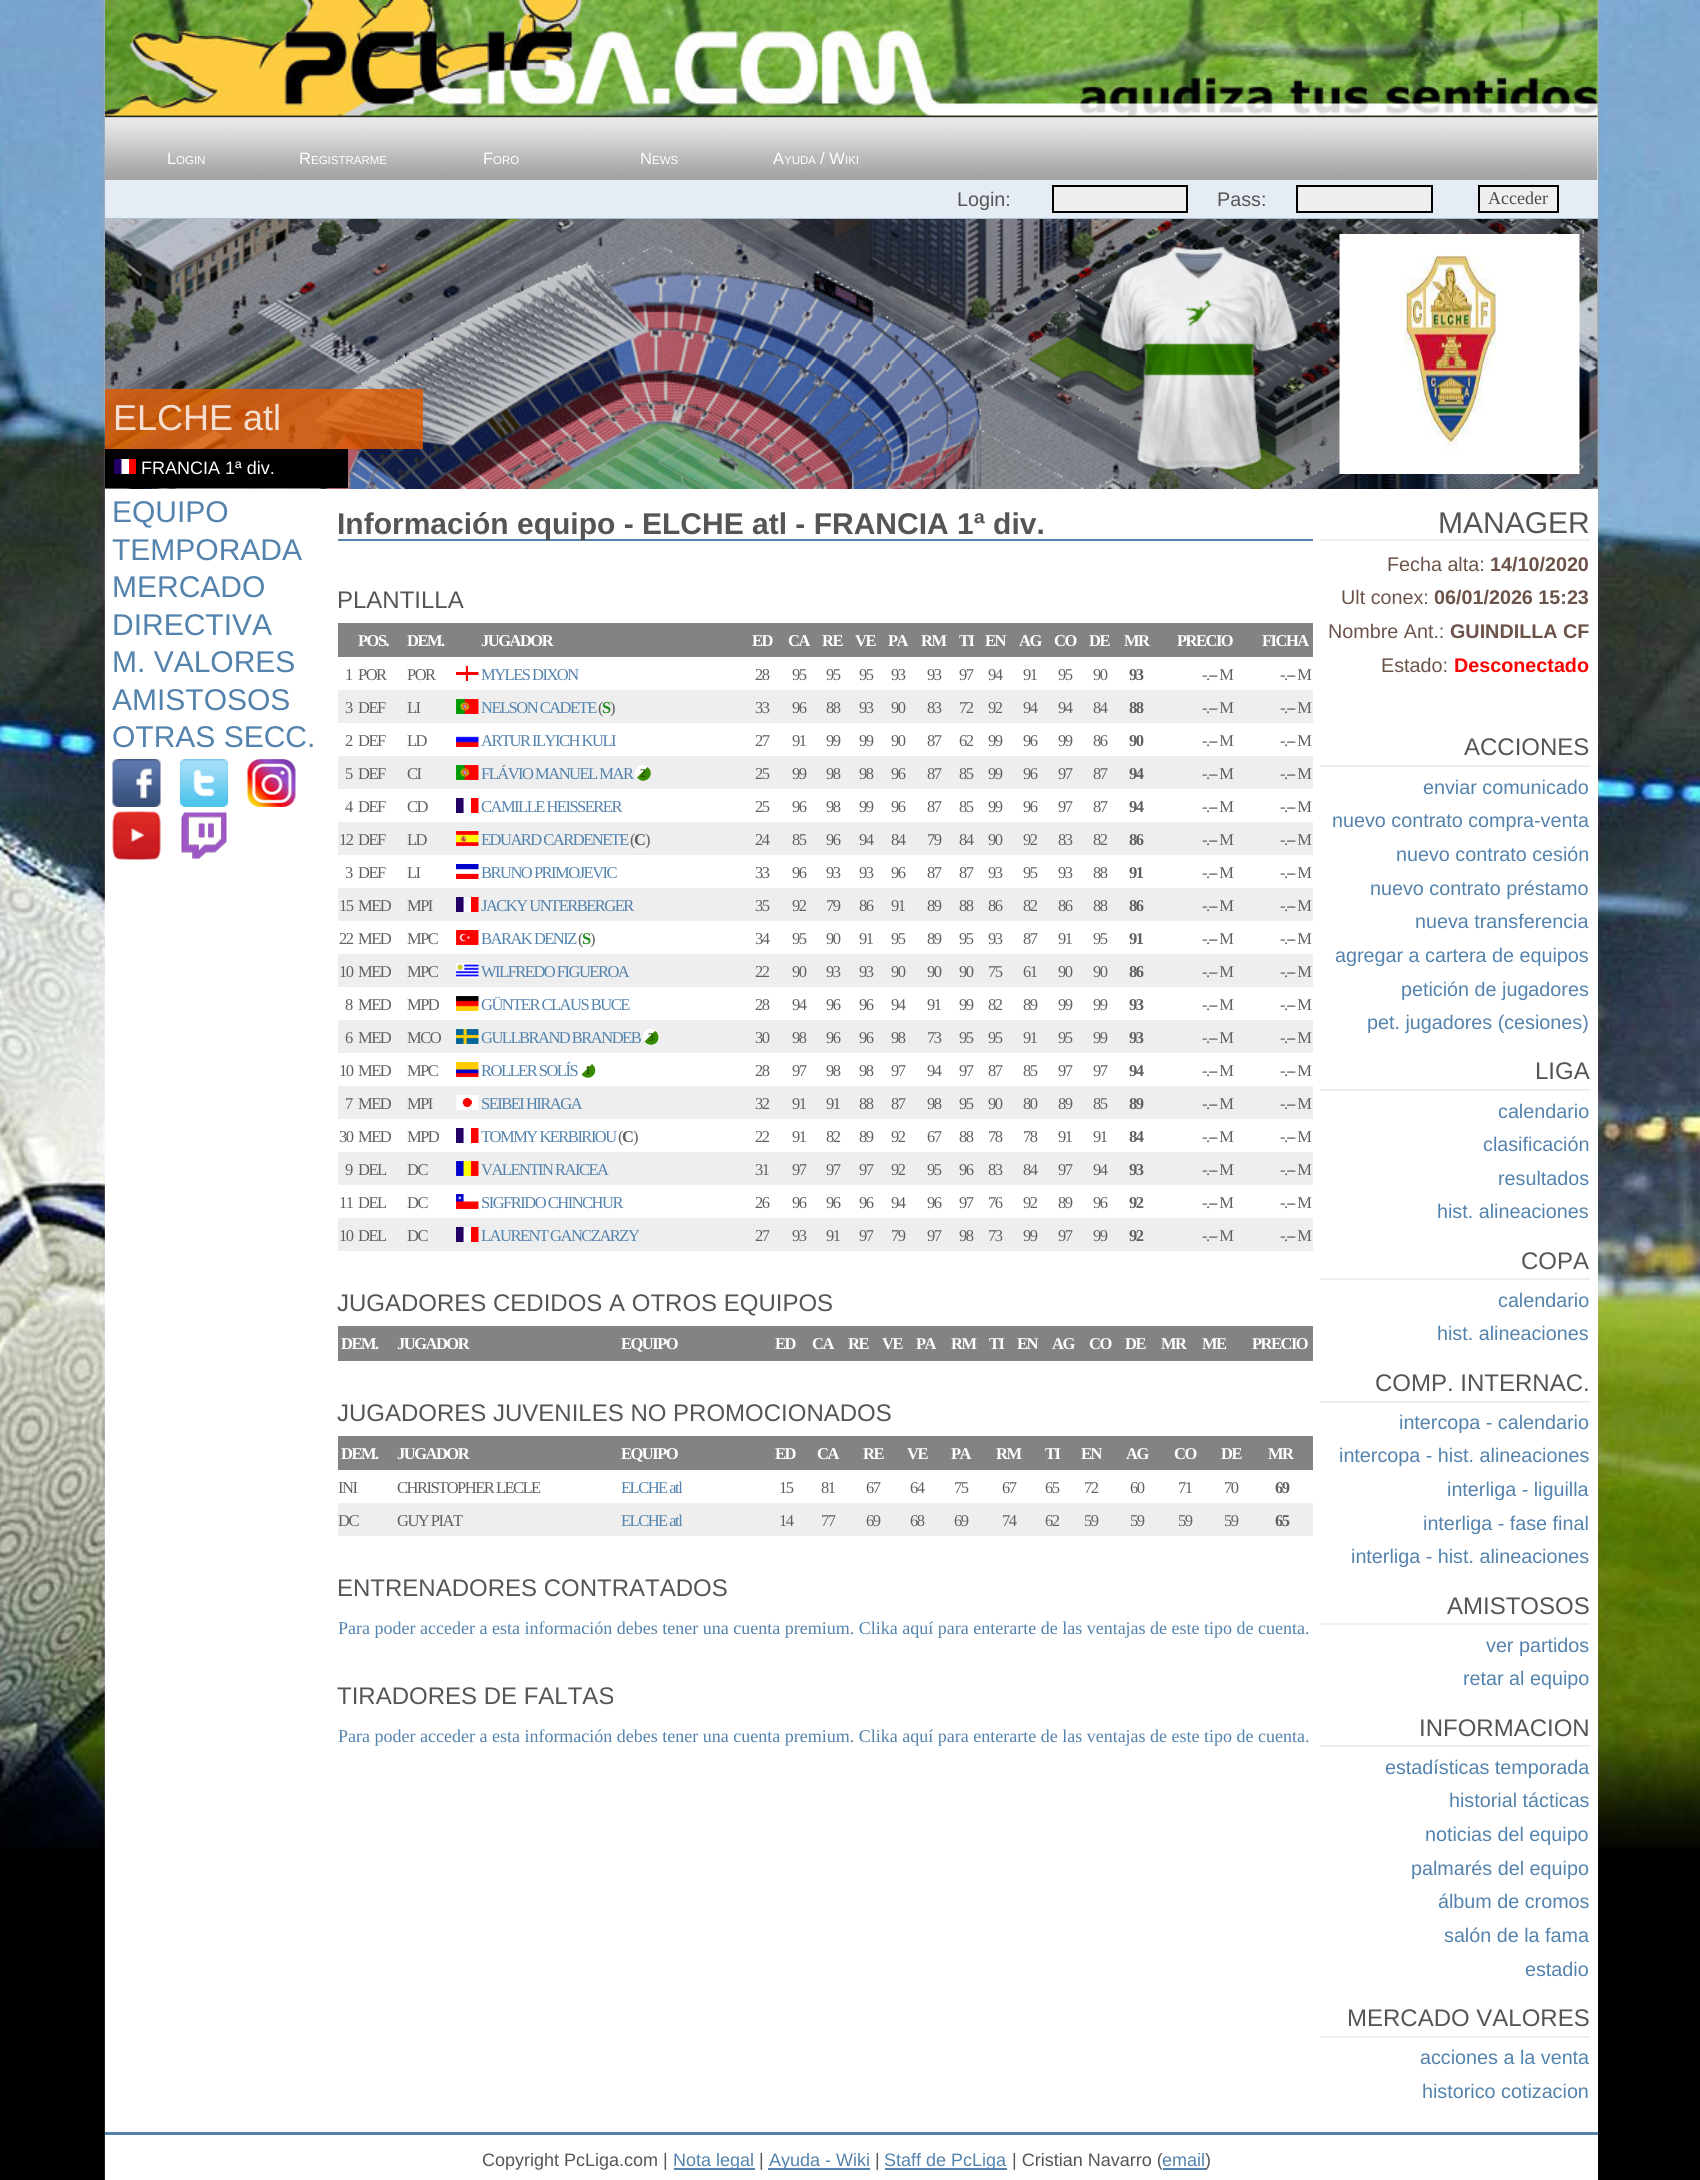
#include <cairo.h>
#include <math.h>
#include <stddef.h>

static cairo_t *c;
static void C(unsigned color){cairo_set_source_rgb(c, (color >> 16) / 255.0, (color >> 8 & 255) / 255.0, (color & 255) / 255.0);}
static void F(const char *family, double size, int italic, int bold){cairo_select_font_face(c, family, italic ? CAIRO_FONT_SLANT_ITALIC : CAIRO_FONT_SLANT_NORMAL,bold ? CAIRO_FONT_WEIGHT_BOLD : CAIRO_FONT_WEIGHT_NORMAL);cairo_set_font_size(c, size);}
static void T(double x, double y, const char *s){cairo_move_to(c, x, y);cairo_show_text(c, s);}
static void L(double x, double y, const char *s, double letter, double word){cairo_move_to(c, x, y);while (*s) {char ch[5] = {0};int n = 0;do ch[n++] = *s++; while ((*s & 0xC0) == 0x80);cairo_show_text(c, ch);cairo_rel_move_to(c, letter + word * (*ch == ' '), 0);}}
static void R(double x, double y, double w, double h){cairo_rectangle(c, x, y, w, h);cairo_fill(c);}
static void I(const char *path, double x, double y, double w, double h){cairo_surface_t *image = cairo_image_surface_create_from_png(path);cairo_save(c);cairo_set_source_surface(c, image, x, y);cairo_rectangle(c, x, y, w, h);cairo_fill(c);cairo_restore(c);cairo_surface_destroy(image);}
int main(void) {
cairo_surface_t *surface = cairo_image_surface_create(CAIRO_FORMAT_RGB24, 1700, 2180);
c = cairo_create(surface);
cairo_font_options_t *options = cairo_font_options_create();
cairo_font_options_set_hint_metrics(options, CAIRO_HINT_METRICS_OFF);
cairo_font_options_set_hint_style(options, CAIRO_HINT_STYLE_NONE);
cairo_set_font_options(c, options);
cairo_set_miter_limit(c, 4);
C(0xffffff);
cairo_paint(c);
I("1.png",0,0,1700,2180);
C(0xffffff);
R(105,0,1493,2180);
I("2.png",105,0,1493,180);
I("3.png",105,0,1493,116);
F("Liberation Sans",16.5,0,0);
T(167,164,"L");
F("Liberation Sans",11.5,0,0);
T(176,164,"OGIN");
F("Liberation Sans",16.5,0,0);
T(299,164,"R");
F("Liberation Sans",11.5,0,0);
T(311,164,"EGISTRARME");
F("Liberation Sans",16.5,0,0);
T(483,164,"F");
F("Liberation Sans",11.5,0,0);
T(493,164,"ORO");
F("Liberation Sans",16.5,0,0);
T(640,164,"N");
F("Liberation Sans",11.5,0,0);
T(652,164,"EWS");
F("Liberation Sans",16.5,0,0);
T(773,164,"A");
F("Liberation Sans",11.5,0,0);
T(784,164,"YUDA");
F("Liberation Sans",16.5,0,0);
T(820,164,"/ W");
F("Liberation Sans",11.5,0,0);
T(845,164,"IKI");
C(0xe5ecf3);
R(105,180,1493,38);
C(0xa9c0d5);
R(105,218,1493,2);
F("Liberation Sans",19.75,0,0);
C(0x555555);
T(957,206,"Login:");
C(0xefefef);
cairo_rectangle(c,1053,186,134,26);
cairo_fill_preserve(c);
C(0x000000);
cairo_stroke(c);
C(0x555555);
T(1217,206,"Pass:");
C(0xefefef);
cairo_rectangle(c,1297,186,135,26);
cairo_fill_preserve(c);
C(0x000000);
cairo_stroke(c);
C(0xefefef);
cairo_rectangle(c,1479,186,79,26);
cairo_fill_preserve(c);
C(0x000000);
cairo_stroke(c);
F("Liberation Serif",18,0,0);
C(0x4c4c4c);
T(1488,204,"Acceder");
I("4.png",1597,219,1,270);
I("5.png",105,219,1493,270);
I("8.png",236,244,848,245);
I("7.png",1009,219,588,270);
I("6.png",310,219,819,270);
cairo_set_source_rgba(c,0.886,0.353,0,0.8);
R(105,389,318,60);
F("Liberation Sans",36,0,0);
C(0xf4ded0);
T(113,430,"ELCHE atl");
I("9.png",1100,246,198,224);
I("10.png",1339,234,241,240);
C(0x000000);
R(105,449,243,39);
I("11.png",114,459,22,15);
F("Liberation Sans",18,0,0);
C(0xffffff);
T(141,474,"FRANCIA 1ª div.");
F("Liberation Sans",30,0,0);
C(0x5382ac);
T(112,522,"EQUIPO");
T(112,560,"TEMPORADA");
T(112,597,"MERCADO");
T(112,635,"DIRECTIVA");
T(112,672,"M. VALORES");
T(112,710,"AMISTOSOS");
T(112,747,"OTRAS SECC.");
I("12.png",112,759,49,48);
I("13.png",180,759,48,48);
I("14.png",247,759,49,48);
I("15.png",112,811,49,49);
I("16.png",181,811,46,49);
R(338,539,975,2);
F("Liberation Sans",30,0,1);
C(0x555555);
T(337,534,"Información equipo - ELCHE atl - FRANCIA 1ª div.");
F("Liberation Sans",24,0,0);
T(337,608,"PLANTILLA");
C(0x848284);
R(338,623,975,34);
F("Liberation Serif",16.5,0,1);
C(0xffffff);
L(358,646,"POS.",-1.5,0);
L(407,646,"DEM.",-1.5,0);
L(481,646,"JUGADOR",-1.5,0);
L(752,646,"ED",-1.5,0);
L(788,646,"CA",-1.5,0);
L(822,646,"RE",-1.5,0);
L(855,646,"VE",-1.5,0);
L(888,646,"PA",-1.5,0);
L(921,646,"RM",-1.5,0);
L(959,646,"TI",-1.5,0);
L(985,646,"EN",-1.5,0);
L(1019,646,"AG",-1.5,0);
L(1054,646,"CO",-1.5,0);
L(1089,646,"DE",-1.5,0);
L(1124,646,"MR",-1.5,0);
L(1177,646,"PRECIO",-1.5,0);
L(1262,646,"FICHA",-1.5,0);
F("Liberation Serif",16.5,0,0);
C(0x606060);
L(345,680,"1",-1.5,0);
L(358,680,"POR",-1.5,0);
L(407,680,"POR",-1.5,0);
I("17.png",456,666,23,15);
C(0x5382ac);
L(481,680,"MYLES DIXON",-1.5,0);
C(0x606060);
L(755,680,"28",-1.5,0);
L(792,680,"95",-1.5,0);
L(826,680,"95",-1.5,0);
L(859,680,"95",-1.5,0);
L(891,680,"93",-1.5,0);
L(927,680,"93",-1.5,0);
L(959,680,"97",-1.5,0);
L(988,680,"94",-1.5,0);
L(1023,680,"91",-1.5,0);
L(1058,680,"95",-1.5,0);
L(1093,680,"90",-1.5,0);
F("Liberation Serif",16.5,0,1);
L(1129,680,"93",-1.5,0);
F("Liberation Serif",16.5,0,0);
L(1202,680,"-.-- M",-1.5,0);
L(1280,680,"-.-- M",-1.5,0);
C(0xeeeeee);
R(338,690,975,33);
C(0x606060);
L(345,713,"3",-1.5,0);
L(358,713,"DEF",-1.5,0);
L(407,713,"LI",-1.5,0);
I("18.png",456,699,23,15);
C(0x5382ac);
L(481,713,"NELSON CADETE",-1.5,0);
C(0x606060);
L(598,713,"(",-1.5,0);
F("Liberation Serif",16.5,0,1);
C(0x228b22);
L(602,713,"S",-1.5,0);
F("Liberation Serif",16.5,0,0);
C(0x606060);
L(610,713,")",-1.5,0);
L(755,713,"33",-1.5,0);
L(792,713,"96",-1.5,0);
L(826,713,"88",-1.5,0);
L(859,713,"93",-1.5,0);
L(891,713,"90",-1.5,0);
L(927,713,"83",-1.5,0);
L(959,713,"72",-1.5,0);
L(988,713,"92",-1.5,0);
L(1023,713,"94",-1.5,0);
L(1058,713,"94",-1.5,0);
L(1093,713,"84",-1.5,0);
F("Liberation Serif",16.5,0,1);
L(1129,713,"88",-1.5,0);
F("Liberation Serif",16.5,0,0);
L(1202,713,"-.-- M",-1.5,0);
L(1280,713,"-.-- M",-1.5,0);
L(345,746,"2",-1.5,0);
L(358,746,"DEF",-1.5,0);
L(407,746,"LD",-1.5,0);
I("19.png",456,736,23,11);
C(0x5382ac);
L(481,746,"ARTUR ILYICH KULI",-1.5,0);
C(0x606060);
L(755,746,"27",-1.5,0);
L(792,746,"91",-1.5,0);
L(826,746,"99",-1.5,0);
L(859,746,"99",-1.5,0);
L(891,746,"90",-1.5,0);
L(927,746,"87",-1.5,0);
L(959,746,"62",-1.5,0);
L(988,746,"99",-1.5,0);
L(1023,746,"96",-1.5,0);
L(1058,746,"99",-1.5,0);
L(1093,746,"86",-1.5,0);
F("Liberation Serif",16.5,0,1);
L(1129,746,"90",-1.5,0);
F("Liberation Serif",16.5,0,0);
L(1202,746,"-.-- M",-1.5,0);
L(1280,746,"-.-- M",-1.5,0);
C(0xeeeeee);
R(338,756,975,33);
C(0x606060);
L(345,779,"5",-1.5,0);
L(358,779,"DEF",-1.5,0);
L(407,779,"CI",-1.5,0);
I("18.png",456,765,23,15);
C(0x5382ac);
L(481,779,"FLÁVIO MANUEL MAR",-1.5,0);
C(0xffffff);
cairo_new_path(c);
cairo_move_to(c,647.5,767);
cairo_curve_to(c,654.5,774,644,785,637,778);
cairo_curve_to(c,630,771,640.5,760,647.5,767);
cairo_close_path(c);
cairo_fill(c);
C(0x388b00);
cairo_new_path(c);
cairo_move_to(c,647.5,767);
cairo_line_to(c,648.5,768);
cairo_curve_to(c,651.5,771,651.5,776,648.5,778.5);
cairo_curve_to(c,645.5,781.5,641,781.5,638,778.5);
cairo_line_to(c,637,777.5);
cairo_close_path(c);
cairo_fill(c);
F("Liberation Serif",12,0,1);
C(0x235700);
L(640,777,"2",-1.5,0);
F("Liberation Serif",16.5,0,0);
C(0x606060);
L(755,779,"25",-1.5,0);
L(792,779,"99",-1.5,0);
L(826,779,"98",-1.5,0);
L(859,779,"98",-1.5,0);
L(891,779,"96",-1.5,0);
L(927,779,"87",-1.5,0);
L(959,779,"85",-1.5,0);
L(988,779,"99",-1.5,0);
L(1023,779,"96",-1.5,0);
L(1058,779,"97",-1.5,0);
L(1093,779,"87",-1.5,0);
F("Liberation Serif",16.5,0,1);
L(1129,779,"94",-1.5,0);
F("Liberation Serif",16.5,0,0);
L(1202,779,"-.-- M",-1.5,0);
L(1280,779,"-.-- M",-1.5,0);
L(345,812,"4",-1.5,0);
L(358,812,"DEF",-1.5,0);
L(407,812,"CD",-1.5,0);
I("20.png",456,798,23,15);
C(0x5382ac);
L(481,812,"CAMILLE HEISSERER",-1.5,0);
C(0x606060);
L(755,812,"25",-1.5,0);
L(792,812,"96",-1.5,0);
L(826,812,"98",-1.5,0);
L(859,812,"99",-1.5,0);
L(891,812,"96",-1.5,0);
L(927,812,"87",-1.5,0);
L(959,812,"85",-1.5,0);
L(988,812,"99",-1.5,0);
L(1023,812,"96",-1.5,0);
L(1058,812,"97",-1.5,0);
L(1093,812,"87",-1.5,0);
F("Liberation Serif",16.5,0,1);
L(1129,812,"94",-1.5,0);
F("Liberation Serif",16.5,0,0);
L(1202,812,"-.-- M",-1.5,0);
L(1280,812,"-.-- M",-1.5,0);
C(0xeeeeee);
R(338,822,975,33);
C(0x606060);
L(339,845,"12",-1.5,0);
L(358,845,"DEF",-1.5,0);
L(407,845,"LD",-1.5,0);
I("21.png",456,831,23,15);
C(0x5382ac);
L(481,845,"EDUARD CARDENETE",-1.5,0);
C(0x606060);
L(630,845,"(",-1.5,0);
F("Liberation Serif",16.5,0,1);
L(634,845,"C",-1.5,0);
F("Liberation Serif",16.5,0,0);
L(645,845,")",-1.5,0);
L(755,845,"24",-1.5,0);
L(792,845,"85",-1.5,0);
L(826,845,"96",-1.5,0);
L(859,845,"94",-1.5,0);
L(891,845,"84",-1.5,0);
L(927,845,"79",-1.5,0);
L(959,845,"84",-1.5,0);
L(988,845,"90",-1.5,0);
L(1023,845,"92",-1.5,0);
L(1058,845,"83",-1.5,0);
L(1093,845,"82",-1.5,0);
F("Liberation Serif",16.5,0,1);
L(1129,845,"86",-1.5,0);
F("Liberation Serif",16.5,0,0);
L(1202,845,"-.-- M",-1.5,0);
L(1280,845,"-.-- M",-1.5,0);
L(345,878,"3",-1.5,0);
L(358,878,"DEF",-1.5,0);
L(407,878,"LI",-1.5,0);
I("22.png",456,864,23,15);
C(0x5382ac);
L(481,878,"BRUNO PRIMOJEVIC",-1.5,0);
C(0x606060);
L(755,878,"33",-1.5,0);
L(792,878,"96",-1.5,0);
L(826,878,"93",-1.5,0);
L(859,878,"93",-1.5,0);
L(891,878,"96",-1.5,0);
L(927,878,"87",-1.5,0);
L(959,878,"87",-1.5,0);
L(988,878,"93",-1.5,0);
L(1023,878,"95",-1.5,0);
L(1058,878,"93",-1.5,0);
L(1093,878,"88",-1.5,0);
F("Liberation Serif",16.5,0,1);
L(1129,878,"91",-1.5,0);
F("Liberation Serif",16.5,0,0);
L(1202,878,"-.-- M",-1.5,0);
L(1280,878,"-.-- M",-1.5,0);
C(0xeeeeee);
R(338,888,975,33);
C(0x606060);
L(339,911,"15",-1.5,0);
L(358,911,"MED",-1.5,0);
L(407,911,"MPI",-1.5,0);
I("23.png",456,897,23,15);
C(0x5382ac);
L(481,911,"JACKY UNTERBERGER",-1.5,0);
C(0x606060);
L(755,911,"35",-1.5,0);
L(792,911,"92",-1.5,0);
L(826,911,"79",-1.5,0);
L(859,911,"86",-1.5,0);
L(891,911,"91",-1.5,0);
L(927,911,"89",-1.5,0);
L(959,911,"88",-1.5,0);
L(988,911,"86",-1.5,0);
L(1023,911,"82",-1.5,0);
L(1058,911,"86",-1.5,0);
L(1093,911,"88",-1.5,0);
F("Liberation Serif",16.5,0,1);
L(1129,911,"86",-1.5,0);
F("Liberation Serif",16.5,0,0);
L(1202,911,"-.-- M",-1.5,0);
L(1280,911,"-.-- M",-1.5,0);
L(339,944,"22",-1.5,0);
L(358,944,"MED",-1.5,0);
L(407,944,"MPC",-1.5,0);
I("24.png",456,930,23,15);
C(0x5382ac);
L(481,944,"BARAK DENIZ",-1.5,0);
C(0x606060);
L(578,944,"(",-1.5,0);
F("Liberation Serif",16.5,0,1);
C(0x228b22);
L(582,944,"S",-1.5,0);
F("Liberation Serif",16.5,0,0);
C(0x606060);
L(590,944,")",-1.5,0);
L(755,944,"34",-1.5,0);
L(792,944,"95",-1.5,0);
L(826,944,"90",-1.5,0);
L(859,944,"91",-1.5,0);
L(891,944,"95",-1.5,0);
L(927,944,"89",-1.5,0);
L(959,944,"95",-1.5,0);
L(988,944,"93",-1.5,0);
L(1023,944,"87",-1.5,0);
L(1058,944,"91",-1.5,0);
L(1093,944,"95",-1.5,0);
F("Liberation Serif",16.5,0,1);
L(1129,944,"91",-1.5,0);
F("Liberation Serif",16.5,0,0);
L(1202,944,"-.-- M",-1.5,0);
L(1280,944,"-.-- M",-1.5,0);
C(0xeeeeee);
R(338,954,975,33);
C(0x606060);
L(339,977,"10",-1.5,0);
L(358,977,"MED",-1.5,0);
L(407,977,"MPC",-1.5,0);
I("25.png",456,963,23,15);
C(0x5382ac);
L(481,977,"WILFREDO FIGUEROA",-1.5,0);
C(0x606060);
L(755,977,"22",-1.5,0);
L(792,977,"90",-1.5,0);
L(826,977,"93",-1.5,0);
L(859,977,"93",-1.5,0);
L(891,977,"90",-1.5,0);
L(927,977,"90",-1.5,0);
L(959,977,"90",-1.5,0);
L(988,977,"75",-1.5,0);
L(1023,977,"61",-1.5,0);
L(1058,977,"90",-1.5,0);
L(1093,977,"90",-1.5,0);
F("Liberation Serif",16.5,0,1);
L(1129,977,"86",-1.5,0);
F("Liberation Serif",16.5,0,0);
L(1202,977,"-.-- M",-1.5,0);
L(1280,977,"-.-- M",-1.5,0);
L(345,1010,"8",-1.5,0);
L(358,1010,"MED",-1.5,0);
L(407,1010,"MPD",-1.5,0);
I("26.png",456,996,23,15);
C(0x5382ac);
L(481,1010,"GÜNTER CLAUS BUCE",-1.5,0);
C(0x606060);
L(755,1010,"28",-1.5,0);
L(792,1010,"94",-1.5,0);
L(826,1010,"96",-1.5,0);
L(859,1010,"96",-1.5,0);
L(891,1010,"94",-1.5,0);
L(927,1010,"91",-1.5,0);
L(959,1010,"99",-1.5,0);
L(988,1010,"82",-1.5,0);
L(1023,1010,"89",-1.5,0);
L(1058,1010,"99",-1.5,0);
L(1093,1010,"99",-1.5,0);
F("Liberation Serif",16.5,0,1);
L(1129,1010,"93",-1.5,0);
F("Liberation Serif",16.5,0,0);
L(1202,1010,"-.-- M",-1.5,0);
L(1280,1010,"-.-- M",-1.5,0);
C(0xeeeeee);
R(338,1020,975,33);
C(0x606060);
L(345,1043,"6",-1.5,0);
L(358,1043,"MED",-1.5,0);
L(407,1043,"MCO",-1.5,0);
I("27.png",456,1029,23,15);
C(0xffffff);
cairo_new_path(c);
cairo_move_to(c,655.5,1031);
cairo_curve_to(c,662.5,1038,652,1049,645,1042);
cairo_curve_to(c,638,1035,648.5,1024,655.5,1031);
cairo_close_path(c);
cairo_fill(c);
C(0x5382ac);
L(481,1043,"GULLBRAND BRANDEB",-1.5,0);
C(0x388b00);
cairo_new_path(c);
cairo_move_to(c,655,1031);
cairo_line_to(c,656.5,1032);
cairo_curve_to(c,659,1035,659,1040,656.5,1042.5);
cairo_curve_to(c,653.5,1045.5,648.5,1045.5,645.5,1042.5);
cairo_line_to(c,644.5,1041.5);
cairo_close_path(c);
cairo_fill(c);
F("Liberation Serif",12,0,1);
C(0x235700);
L(648,1041,"3",-1.5,0);
F("Liberation Serif",16.5,0,0);
C(0x606060);
L(755,1043,"30",-1.5,0);
L(792,1043,"98",-1.5,0);
L(826,1043,"96",-1.5,0);
L(859,1043,"96",-1.5,0);
L(891,1043,"98",-1.5,0);
L(927,1043,"73",-1.5,0);
L(959,1043,"95",-1.5,0);
L(988,1043,"95",-1.5,0);
L(1023,1043,"91",-1.5,0);
L(1058,1043,"95",-1.5,0);
L(1093,1043,"99",-1.5,0);
F("Liberation Serif",16.5,0,1);
L(1129,1043,"93",-1.5,0);
F("Liberation Serif",16.5,0,0);
L(1202,1043,"-.-- M",-1.5,0);
L(1280,1043,"-.-- M",-1.5,0);
L(339,1076,"10",-1.5,0);
L(358,1076,"MED",-1.5,0);
L(407,1076,"MPC",-1.5,0);
I("28.png",456,1062,23,15);
C(0x5382ac);
L(481,1076,"ROLLER SOLÍS",-1.5,0);
C(0x388b00);
cairo_new_path(c);
cairo_move_to(c,592,1064);
cairo_line_to(c,593,1065);
cairo_curve_to(c,596,1068,596,1073,593,1075.5);
cairo_curve_to(c,590.5,1078.5,585.5,1078.5,582.5,1075.5);
cairo_line_to(c,581.5,1074.5);
cairo_close_path(c);
cairo_fill(c);
F("Liberation Serif",12,0,1);
C(0x235700);
L(585,1074,"1",-1.5,0);
F("Liberation Serif",16.5,0,0);
C(0x606060);
L(755,1076,"28",-1.5,0);
L(792,1076,"97",-1.5,0);
L(826,1076,"98",-1.5,0);
L(859,1076,"98",-1.5,0);
L(891,1076,"97",-1.5,0);
L(927,1076,"94",-1.5,0);
L(959,1076,"97",-1.5,0);
L(988,1076,"87",-1.5,0);
L(1023,1076,"85",-1.5,0);
L(1058,1076,"97",-1.5,0);
L(1093,1076,"97",-1.5,0);
F("Liberation Serif",16.5,0,1);
L(1129,1076,"94",-1.5,0);
F("Liberation Serif",16.5,0,0);
L(1202,1076,"-.-- M",-1.5,0);
L(1280,1076,"-.-- M",-1.5,0);
C(0xeeeeee);
R(338,1086,975,33);
C(0x606060);
L(345,1109,"7",-1.5,0);
L(358,1109,"MED",-1.5,0);
L(407,1109,"MPI",-1.5,0);
I("29.png",456,1095,23,15);
C(0x5382ac);
L(481,1109,"SEIBEI HIRAGA",-1.5,0);
C(0x606060);
L(755,1109,"32",-1.5,0);
L(792,1109,"91",-1.5,0);
L(826,1109,"91",-1.5,0);
L(859,1109,"88",-1.5,0);
L(891,1109,"87",-1.5,0);
L(927,1109,"98",-1.5,0);
L(959,1109,"95",-1.5,0);
L(988,1109,"90",-1.5,0);
L(1023,1109,"80",-1.5,0);
L(1058,1109,"89",-1.5,0);
L(1093,1109,"85",-1.5,0);
F("Liberation Serif",16.5,0,1);
L(1129,1109,"89",-1.5,0);
F("Liberation Serif",16.5,0,0);
L(1202,1109,"-.-- M",-1.5,0);
L(1280,1109,"-.-- M",-1.5,0);
L(339,1142,"30",-1.5,0);
L(358,1142,"MED",-1.5,0);
L(407,1142,"MPD",-1.5,0);
I("20.png",456,1128,23,15);
C(0x5382ac);
L(481,1142,"TOMMY KERBIRIOU",-1.5,0);
C(0x606060);
L(618,1142,"(",-1.5,0);
F("Liberation Serif",16.5,0,1);
L(622,1142,"C",-1.5,0);
F("Liberation Serif",16.5,0,0);
L(633,1142,")",-1.5,0);
L(755,1142,"22",-1.5,0);
L(792,1142,"91",-1.5,0);
L(826,1142,"82",-1.5,0);
L(859,1142,"89",-1.5,0);
L(891,1142,"92",-1.5,0);
L(927,1142,"67",-1.5,0);
L(959,1142,"88",-1.5,0);
L(988,1142,"78",-1.5,0);
L(1023,1142,"78",-1.5,0);
L(1058,1142,"91",-1.5,0);
L(1093,1142,"91",-1.5,0);
F("Liberation Serif",16.5,0,1);
L(1129,1142,"84",-1.5,0);
F("Liberation Serif",16.5,0,0);
L(1202,1142,"-.-- M",-1.5,0);
L(1280,1142,"-.-- M",-1.5,0);
C(0xeeeeee);
R(338,1152,975,33);
C(0x606060);
L(345,1175,"9",-1.5,0);
L(358,1175,"DEL",-1.5,0);
L(407,1175,"DC",-1.5,0);
I("30.png",456,1161,23,15);
C(0x5382ac);
L(481,1175,"VALENTIN RAICEA",-1.5,0);
C(0x606060);
L(755,1175,"31",-1.5,0);
L(792,1175,"97",-1.5,0);
L(826,1175,"97",-1.5,0);
L(859,1175,"97",-1.5,0);
L(891,1175,"92",-1.5,0);
L(927,1175,"95",-1.5,0);
L(959,1175,"96",-1.5,0);
L(988,1175,"83",-1.5,0);
L(1023,1175,"84",-1.5,0);
L(1058,1175,"97",-1.5,0);
L(1093,1175,"94",-1.5,0);
F("Liberation Serif",16.5,0,1);
L(1129,1175,"93",-1.5,0);
F("Liberation Serif",16.5,0,0);
L(1202,1175,"-.-- M",-1.5,0);
L(1280,1175,"-.-- M",-1.5,0);
L(339,1208,"11",-1.5,0);
L(358,1208,"DEL",-1.5,0);
L(407,1208,"DC",-1.5,0);
I("31.png",456,1194,23,15);
C(0x5382ac);
L(481,1208,"SIGFRIDO CHINCHUR",-1.5,0);
C(0x606060);
L(755,1208,"26",-1.5,0);
L(792,1208,"96",-1.5,0);
L(826,1208,"96",-1.5,0);
L(859,1208,"96",-1.5,0);
L(891,1208,"94",-1.5,0);
L(927,1208,"96",-1.5,0);
L(959,1208,"97",-1.5,0);
L(988,1208,"76",-1.5,0);
L(1023,1208,"92",-1.5,0);
L(1058,1208,"89",-1.5,0);
L(1093,1208,"96",-1.5,0);
F("Liberation Serif",16.5,0,1);
L(1129,1208,"92",-1.5,0);
F("Liberation Serif",16.5,0,0);
L(1202,1208,"-.-- M",-1.5,0);
L(1280,1208,"-.-- M",-1.5,0);
C(0xeeeeee);
R(338,1218,975,33);
C(0x606060);
L(339,1241,"10",-1.5,0);
L(358,1241,"DEL",-1.5,0);
L(407,1241,"DC",-1.5,0);
I("23.png",456,1227,23,15);
C(0x5382ac);
L(481,1241,"LAURENT GANCZARZY",-1.5,0);
C(0x606060);
L(755,1241,"27",-1.5,0);
L(792,1241,"93",-1.5,0);
L(826,1241,"91",-1.5,0);
L(859,1241,"97",-1.5,0);
L(891,1241,"79",-1.5,0);
L(927,1241,"97",-1.5,0);
L(959,1241,"98",-1.5,0);
L(988,1241,"73",-1.5,0);
L(1023,1241,"99",-1.5,0);
L(1058,1241,"97",-1.5,0);
L(1093,1241,"99",-1.5,0);
F("Liberation Serif",16.5,0,1);
L(1129,1241,"92",-1.5,0);
F("Liberation Serif",16.5,0,0);
L(1202,1241,"-.-- M",-1.5,0);
L(1280,1241,"-.-- M",-1.5,0);
F("Liberation Sans",24,0,0);
C(0x555555);
T(337,1311,"JUGADORES CEDIDOS A OTROS EQUIPOS");
C(0x848284);
R(338,1326,975,35);
F("Liberation Serif",16.5,0,1);
C(0xffffff);
L(341,1349,"DEM.",-1.5,0);
L(397,1349,"JUGADOR",-1.5,0);
L(621,1349,"EQUIPO",-1.5,0);
L(775,1349,"ED",-1.5,0);
L(812,1349,"CA",-1.5,0);
L(848,1349,"RE",-1.5,0);
L(882,1349,"VE",-1.5,0);
L(916,1349,"PA",-1.5,0);
L(951,1349,"RM",-1.5,0);
L(989,1349,"TI",-1.5,0);
L(1017,1349,"EN",-1.5,0);
L(1052,1349,"AG",-1.5,0);
L(1089,1349,"CO",-1.5,0);
L(1125,1349,"DE",-1.5,0);
L(1161,1349,"MR",-1.5,0);
L(1202,1349,"ME",-1.5,0);
L(1252,1349,"PRECIO",-1.5,0);
F("Liberation Sans",24,0,0);
C(0x555555);
T(337,1421,"JUGADORES JUVENILES NO PROMOCIONADOS");
C(0x848284);
R(338,1436,975,34);
F("Liberation Serif",16.5,0,1);
C(0xffffff);
L(341,1459,"DEM.",-1.5,0);
L(397,1459,"JUGADOR",-1.5,0);
L(621,1459,"EQUIPO",-1.5,0);
L(775,1459,"ED",-1.5,0);
L(817,1459,"CA",-1.5,0);
L(863,1459,"RE",-1.5,0);
L(907,1459,"VE",-1.5,0);
L(951,1459,"PA",-1.5,0);
L(996,1459,"RM",-1.5,0);
L(1045,1459,"TI",-1.5,0);
L(1081,1459,"EN",-1.5,0);
L(1126,1459,"AG",-1.5,0);
L(1174,1459,"CO",-1.5,0);
L(1221,1459,"DE",-1.5,0);
L(1268,1459,"MR",-1.5,0);
F("Liberation Serif",16.5,0,0);
C(0x606060);
L(338,1493,"INI",-1.5,0);
L(397,1493,"CHRISTOPHER LECLE",-1.5,0);
C(0x5382ac);
L(621,1493,"ELCHE atl",-1.5,0);
C(0x606060);
L(779,1493,"15",-1.5,0);
L(821,1493,"81",-1.5,0);
L(866,1493,"67",-1.5,0);
L(910,1493,"64",-1.5,0);
L(954,1493,"75",-1.5,0);
L(1002,1493,"67",-1.5,0);
L(1045,1493,"65",-1.5,0);
L(1084,1493,"72",-1.5,0);
L(1130,1493,"60",-1.5,0);
L(1178,1493,"71",-1.5,0);
L(1224,1493,"70",-1.5,0);
F("Liberation Serif",16.5,0,1);
L(1275,1493,"69",-1.5,0);
C(0xeeeeee);
R(338,1503,975,33);
F("Liberation Serif",16.5,0,0);
C(0x606060);
L(338,1526,"DC",-1.5,0);
L(397,1526,"GUY PIAT",-1.5,0);
C(0x5382ac);
L(621,1526,"ELCHE atl",-1.5,0);
C(0x606060);
L(779,1526,"14",-1.5,0);
L(821,1526,"77",-1.5,0);
L(866,1526,"69",-1.5,0);
L(910,1526,"68",-1.5,0);
L(954,1526,"69",-1.5,0);
L(1002,1526,"74",-1.5,0);
L(1045,1526,"62",-1.5,0);
L(1084,1526,"59",-1.5,0);
L(1130,1526,"59",-1.5,0);
L(1178,1526,"59",-1.5,0);
L(1224,1526,"59",-1.5,0);
F("Liberation Serif",16.5,0,1);
L(1275,1526,"65",-1.5,0);
F("Liberation Sans",24,0,0);
C(0x555555);
T(337,1596,"ENTRENADORES CONTRATADOS");
F("Liberation Serif",18,0,0);
C(0x5382ac);
T(338,1634,"Para poder acceder a esta información debes tener una cuenta premium. Clika aquí para enterarte de las ventajas de este tipo de cuenta.");
F("Liberation Sans",24,0,0);
C(0x555555);
T(337,1704,"TIRADORES DE FALTAS");
F("Liberation Serif",18,0,0);
C(0x5382ac);
T(338,1742,"Para poder acceder a esta información debes tener una cuenta premium. Clika aquí para enterarte de las ventajas de este tipo de cuenta.");
C(0xeeeeee);
R(1320,539,270,2);
F("Liberation Sans",30,0,0);
C(0x555555);
T(1438,533,"MANAGER");
F("Liberation Sans",19.75,0,0);
C(0x6c534a);
T(1387,571,"Fecha alta:");
F("Liberation Sans",19.75,0,1);
T(1490,571,"14/10/2020");
F("Liberation Sans",19.75,0,0);
T(1341,604,"Ult conex:");
F("Liberation Sans",19.75,0,1);
T(1434,604,"06/01/2026 15:23");
F("Liberation Sans",19.75,0,0);
T(1328,638,"Nombre Ant.:");
F("Liberation Sans",19.75,0,1);
T(1450,638,"GUINDILLA CF");
F("Liberation Sans",19.75,0,0);
T(1381,672,"Estado:");
F("Liberation Sans",19.75,0,1);
C(0xff0000);
T(1454,672,"Desconectado");
C(0xeeeeee);
R(1320,765,270,2);
F("Liberation Sans",24,0,0);
C(0x555555);
T(1464,755,"ACCIONES");
F("Liberation Sans",19.75,0,0);
C(0x5382ac);
T(1423,794,"enviar comunicado");
T(1332,827,"nuevo contrato compra-venta");
T(1396,861,"nuevo contrato cesión");
T(1370,895,"nuevo contrato préstamo");
T(1415,928,"nueva transferencia");
T(1335,962,"agregar a cartera de equipos");
T(1401,996,"petición de jugadores");
T(1367,1029,"pet. jugadores (cesiones)");
C(0xeeeeee);
R(1320,1089,270,2);
F("Liberation Sans",24,0,0);
C(0x555555);
T(1535,1079,"LIGA");
F("Liberation Sans",19.75,0,0);
C(0x5382ac);
T(1498,1118,"calendario");
T(1483,1151,"clasificación");
T(1498,1185,"resultados");
T(1437,1218,"hist. alineaciones");
C(0xeeeeee);
R(1320,1278,270,2);
F("Liberation Sans",24,0,0);
C(0x555555);
T(1521,1269,"COPA");
F("Liberation Sans",19.75,0,0);
C(0x5382ac);
T(1498,1307,"calendario");
T(1437,1340,"hist. alineaciones");
C(0xeeeeee);
R(1320,1401,270,2);
F("Liberation Sans",24,0,0);
C(0x555555);
T(1375,1391,"COMP. INTERNAC.");
F("Liberation Sans",19.75,0,0);
C(0x5382ac);
T(1399,1429,"intercopa - calendario");
T(1339,1462,"intercopa - hist. alineaciones");
T(1447,1496,"interliga - liguilla");
T(1423,1530,"interliga - fase final");
T(1351,1563,"interliga - hist. alineaciones");
C(0xeeeeee);
R(1320,1623,270,2);
F("Liberation Sans",24,0,0);
C(0x555555);
T(1447,1614,"AMISTOSOS");
F("Liberation Sans",19.75,0,0);
C(0x5382ac);
T(1486,1652,"ver partidos");
T(1463,1685,"retar al equipo");
C(0xeeeeee);
R(1320,1745,270,2);
F("Liberation Sans",24,0,0);
C(0x555555);
T(1419,1736,"INFORMACION");
F("Liberation Sans",19.75,0,0);
C(0x5382ac);
T(1385,1774,"estadísticas temporada");
T(1449,1807,"historial tácticas");
T(1425,1841,"noticias del equipo");
T(1411,1875,"palmarés del equipo");
T(1438,1908,"álbum de cromos");
T(1444,1942,"salón de la fama");
T(1525,1976,"estadio");
C(0xeeeeee);
R(1320,2036,270,2);
F("Liberation Sans",24,0,0);
C(0x555555);
T(1347,2026,"MERCADO VALORES");
F("Liberation Sans",19.75,0,0);
C(0x5382ac);
T(1420,2064,"acciones a la venta");
T(1422,2098,"historico cotizacion");
R(105,2132,1493,3);
F("Liberation Sans",18,0,0);
C(0x555555);
T(482,2166,"Copyright PcLiga.com |");
C(0x5382ac);
R(674,2168,81,2);
T(673,2166,"Nota legal");
C(0x555555);
T(759,2166,"|");
C(0x5382ac);
R(768,2168,102,2);
T(769,2166,"Ayuda - Wiki");
C(0x555555);
T(875,2166,"|");
C(0x5382ac);
R(885,2168,122,2);
T(884,2166,"Staff de PcLiga");
C(0x555555);
T(1012,2166,"| Cristian Navarro (");
C(0x5382ac);
T(1162,2166,"email");
R(1163,2168,43,2);
C(0x555555);
T(1205,2166,")");
cairo_surface_write_to_png(surface, "o.png");
cairo_font_options_destroy(options);
cairo_destroy(c);
cairo_surface_destroy(surface);
return 0;
}
